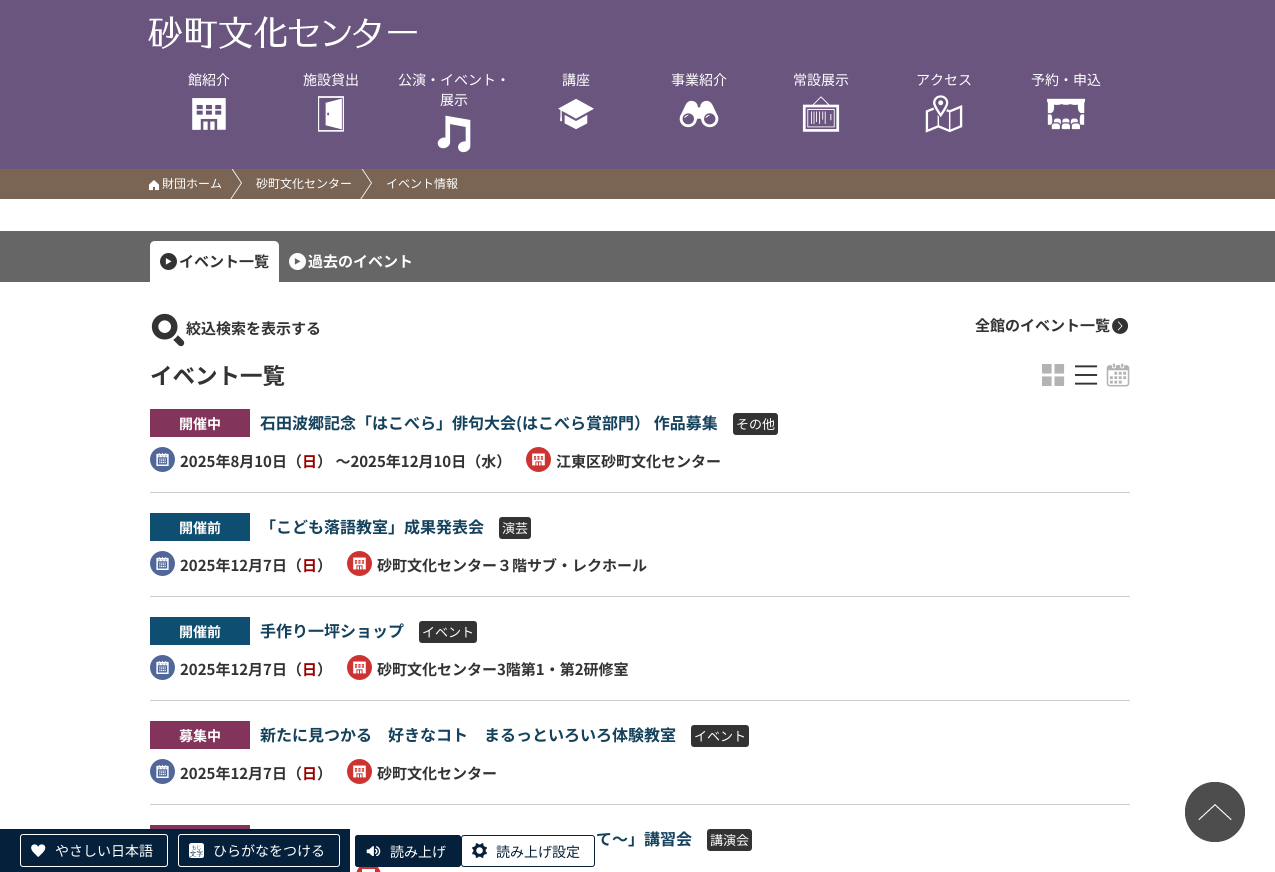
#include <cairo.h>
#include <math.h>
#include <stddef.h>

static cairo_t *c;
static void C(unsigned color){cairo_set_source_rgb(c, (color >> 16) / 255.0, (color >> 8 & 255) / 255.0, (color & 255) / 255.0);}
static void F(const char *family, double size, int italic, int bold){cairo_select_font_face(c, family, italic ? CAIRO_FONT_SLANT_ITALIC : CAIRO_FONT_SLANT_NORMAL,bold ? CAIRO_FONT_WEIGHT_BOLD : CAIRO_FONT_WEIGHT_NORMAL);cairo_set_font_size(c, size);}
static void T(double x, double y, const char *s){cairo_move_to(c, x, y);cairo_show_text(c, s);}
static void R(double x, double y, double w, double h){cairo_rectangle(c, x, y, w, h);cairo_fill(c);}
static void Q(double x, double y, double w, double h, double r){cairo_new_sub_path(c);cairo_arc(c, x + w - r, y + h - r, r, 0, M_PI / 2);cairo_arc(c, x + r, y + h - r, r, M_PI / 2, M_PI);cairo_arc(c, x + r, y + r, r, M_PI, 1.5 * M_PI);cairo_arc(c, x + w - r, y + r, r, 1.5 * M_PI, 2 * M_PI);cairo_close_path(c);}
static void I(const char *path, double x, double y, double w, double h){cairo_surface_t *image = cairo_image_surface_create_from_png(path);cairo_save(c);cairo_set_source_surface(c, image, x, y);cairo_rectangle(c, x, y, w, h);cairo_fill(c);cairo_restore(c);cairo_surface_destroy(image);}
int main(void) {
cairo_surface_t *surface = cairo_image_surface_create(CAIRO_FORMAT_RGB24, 1275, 872);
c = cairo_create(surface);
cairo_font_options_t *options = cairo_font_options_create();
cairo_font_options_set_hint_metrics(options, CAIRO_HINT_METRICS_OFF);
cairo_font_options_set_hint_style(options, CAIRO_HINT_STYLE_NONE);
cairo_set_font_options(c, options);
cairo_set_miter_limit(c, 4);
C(0xffffff);
cairo_paint(c);
C(0x6a557f);
R(0,0,1275,169);
I("1.png",148,16,269,33);
F("Noto Sans JP",14,0,0);
C(0xffffff);
T(188,85,"館紹介");
I("2.png",192,98,34,32);
T(303,85,"施設貸出");
I("3.png",318,96,26,36);
T(398,85,"公演・イベント・");
T(440,105,"展示");
I("4.png",437,115,34,38);
T(562,85,"講座");
I("5.png",558,98,36,32);
T(671,85,"事業紹介");
I("6.png",679,100,40,28);
T(793,85,"常設展示");
I("7.png",802,96,38,36);
T(916,85,"アクセス");
I("8.png",925,95,38,38);
T(1031,85,"予約・申込");
I("9.png",1047,98,39,32);
C(0x7a6554);
R(0,169,1275,30);
F("Noto Sans JP",12,0,0);
C(0xffffff);
T(162,188,"財団ホーム");
cairo_save(c);
cairo_rectangle(c,148,169,980,30);
cairo_clip(c);
cairo_new_path(c);
cairo_move_to(c,222,213);
cairo_line_to(c,222,153);
cairo_line_to(c,242,183);
cairo_close_path(c);
cairo_fill(c);
C(0x7a6554);
cairo_new_path(c);
cairo_move_to(c,221,213);
cairo_line_to(c,221,153);
cairo_line_to(c,241,183);
cairo_close_path(c);
cairo_fill(c);
cairo_restore(c);
I("10.png",148,180,12,11);
cairo_save(c);
cairo_rectangle(c,148,169,980,30);
cairo_clip(c);
cairo_new_path(c);
cairo_move_to(c,352,213);
cairo_line_to(c,352,153);
cairo_line_to(c,372,183);
cairo_close_path(c);
cairo_fill(c);
C(0x7a6554);
cairo_new_path(c);
cairo_move_to(c,351,213);
cairo_line_to(c,351,153);
cairo_line_to(c,371,183);
cairo_close_path(c);
cairo_fill(c);
cairo_restore(c);
T(256,188,"砂町文化センター");
T(386,188,"イベント情報");
C(0x666666);
R(0,231,1275,51);
C(0xffffff);
cairo_new_path(c);
cairo_move_to(c,155,241);
cairo_line_to(c,274,241);
cairo_curve_to(c,277,241,279,243,279,246);
cairo_line_to(c,279,282);
cairo_line_to(c,150,282);
cairo_line_to(c,150,246);
cairo_curve_to(c,150,243,152,241,155,241);
cairo_close_path(c);
cairo_fill(c);
C(0x333333);
cairo_arc(c,168.5,261.5,8.5,0,2 * M_PI);
cairo_fill(c);
F("Noto Sans JP",7,0,1);
C(0xffffff);
T(165,264,"▶");
F("Noto Sans JP",15,0,1);
C(0x333333);
T(179,267,"イベント一覧");
C(0xffffff);
cairo_new_path(c);
cairo_arc(c,297.5,261.5,8.5,0,2 * M_PI);
cairo_fill(c);
F("Noto Sans JP",7,0,1);
C(0x666666);
T(294,264,"▶");
F("Noto Sans JP",15,0,1);
C(0xffffff);
T(308,267,"過去のイベント");
I("11.png",151,313,34,34);
C(0x333333);
T(186,334,"絞込検索を表示する");
T(975,331,"全館のイベント一覧");
I("12.png",1112,317,17,17);
F("Noto Sans JP",22.5,0,1);
T(150,384,"イベント一覧");
I("13.png",1042,364,23,22);
I("14.png",1075,365,23,20);
I("15.png",1106,363,24,24);
C(0xcccccc);
R(150,492,980,1);
C(0x82345b);
R(150,409,100,28);
F("Noto Sans JP",14,0,1);
C(0xffffff);
T(179,429,"開催中");
F("Noto Sans JP",16,0,1);
C(0x14415b);
T(260,429,"石田波郷記念「はこべら」俳句大会(はこべら賞部門） 作品募集");
C(0x333333);
Q(733,413,45,22,3);
cairo_fill(c);
F("Noto Sans JP",13,0,0);
C(0xffffff);
T(736,429,"その他");
C(0x516699);
cairo_new_path(c);
cairo_arc(c,162.5,459.5,12.5,0,2 * M_PI);
cairo_fill(c);
I("16.png",156,453,13,13);
F("Noto Sans JP",15,0,1);
C(0x333333);
T(180,467,"2025年8月10日（");
C(0x990000);
T(302,467,"日");
C(0x333333);
T(317,467,"） ～2025年12月10日（水）");
C(0xcc3333);
cairo_new_path(c);
cairo_arc(c,538.5,459.5,12.5,0,2 * M_PI);
cairo_fill(c);
I("17.png",532,453,13,13);
C(0x333333);
T(556,467,"江東区砂町文化センター");
C(0xcccccc);
R(150,596,980,1);
C(0x0e4e70);
R(150,513,100,28);
F("Noto Sans JP",14,0,1);
C(0xffffff);
T(179,533,"開催前");
F("Noto Sans JP",16,0,1);
C(0x14415b);
T(260,533,"「こども落語教室」成果発表会");
C(0x333333);
Q(499,517,32,22,3);
cairo_fill(c);
F("Noto Sans JP",13,0,0);
C(0xffffff);
T(502,533,"演芸");
C(0x516699);
cairo_new_path(c);
cairo_arc(c,162.5,563.5,12.5,0,2 * M_PI);
cairo_fill(c);
I("16.png",156,557,13,13);
F("Noto Sans JP",15,0,1);
C(0x333333);
T(180,571,"2025年12月7日（");
C(0x990000);
T(302,571,"日");
C(0x333333);
T(317,571,"）");
C(0xcc3333);
cairo_new_path(c);
cairo_arc(c,359.5,563.5,12.5,0,2 * M_PI);
cairo_fill(c);
I("17.png",353,557,13,13);
C(0x333333);
T(377,571,"砂町文化センター３階サブ・レクホール");
C(0xcccccc);
R(150,700,980,1);
C(0x0e4e70);
R(150,617,100,28);
F("Noto Sans JP",14,0,1);
C(0xffffff);
T(179,637,"開催前");
F("Noto Sans JP",16,0,1);
C(0x14415b);
T(260,637,"手作り一坪ショップ");
C(0x333333);
Q(419,621,58,22,3);
cairo_fill(c);
F("Noto Sans JP",13,0,0);
C(0xffffff);
T(422,637,"イベント");
C(0x516699);
cairo_new_path(c);
cairo_arc(c,162.5,667.5,12.5,0,2 * M_PI);
cairo_fill(c);
I("16.png",156,661,13,13);
F("Noto Sans JP",15,0,1);
C(0x333333);
T(180,675,"2025年12月7日（");
C(0x990000);
T(302,675,"日");
C(0x333333);
T(317,675,"）");
C(0xcc3333);
cairo_new_path(c);
cairo_arc(c,359.5,667.5,12.5,0,2 * M_PI);
cairo_fill(c);
I("17.png",353,661,13,13);
C(0x333333);
T(377,675,"砂町文化センター3階第1・第2研修室");
C(0xcccccc);
R(150,804,980,1);
C(0x82345b);
R(150,721,100,28);
F("Noto Sans JP",14,0,1);
C(0xffffff);
T(179,741,"募集中");
F("Noto Sans JP",16,0,1);
C(0x14415b);
T(260,741,"新たに見つかる　好きなコト　まるっといろいろ体験教室");
C(0x333333);
Q(691,725,58,22,3);
cairo_fill(c);
F("Noto Sans JP",13,0,0);
C(0xffffff);
T(694,741,"イベント");
C(0x516699);
cairo_new_path(c);
cairo_arc(c,162.5,771.5,12.5,0,2 * M_PI);
cairo_fill(c);
I("16.png",156,765,13,13);
F("Noto Sans JP",15,0,1);
C(0x333333);
T(180,779,"2025年12月7日（");
C(0x990000);
T(302,779,"日");
C(0x333333);
T(317,779,"）");
C(0xcc3333);
cairo_new_path(c);
cairo_arc(c,359.5,771.5,12.5,0,2 * M_PI);
cairo_fill(c);
I("17.png",353,765,13,13);
C(0x333333);
T(377,779,"砂町文化センター");
C(0x82345b);
R(150,825,100,4);
F("Noto Sans JP",16,0,1);
C(0x14415b);
T(596,845,"て～」講習会");
C(0x333333);
Q(707,829,45,22,3);
cairo_fill(c);
F("Noto Sans JP",13,0,0);
C(0xffffff);
T(710,845,"講演会");
C(0xcc3333);
Q(356,863,25,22,12.5);
cairo_fill(c);
C(0xffffff);
R(362,869,13,3);
I("18.png",1185,782,60,60);
C(0x05203a);
R(0,829,350,43);
I("19.png",31,844,15,13);
Q(20.5,834.5,147,32,2.5);
C(0xffffff);
cairo_set_line_width(c,1);
cairo_stroke(c);
F("Noto Sans JP",14,0,0);
T(55,856,"やさしい日本語");
I("20.png",189,843,15,15);
Q(178.5,834.5,161,32,2.5);
cairo_stroke(c);
T(213,856,"ひらがなをつける");
C(0x05203a);
Q(355,835,106,32,3);
cairo_fill(c);
I("21.png",366,846,15,10);
Q(355.5,835.5,105,31,2.5);
cairo_stroke(c);
C(0xffffff);
T(390,857,"読み上げ");
I("22.png",472,843,15,15);
Q(461.5,835.5,133,31,2.5);
C(0x05203a);
cairo_stroke(c);
T(496,857,"読み上げ設定");
cairo_surface_write_to_png(surface, "o.png");
cairo_font_options_destroy(options);
cairo_destroy(c);
cairo_surface_destroy(surface);
return 0;
}
